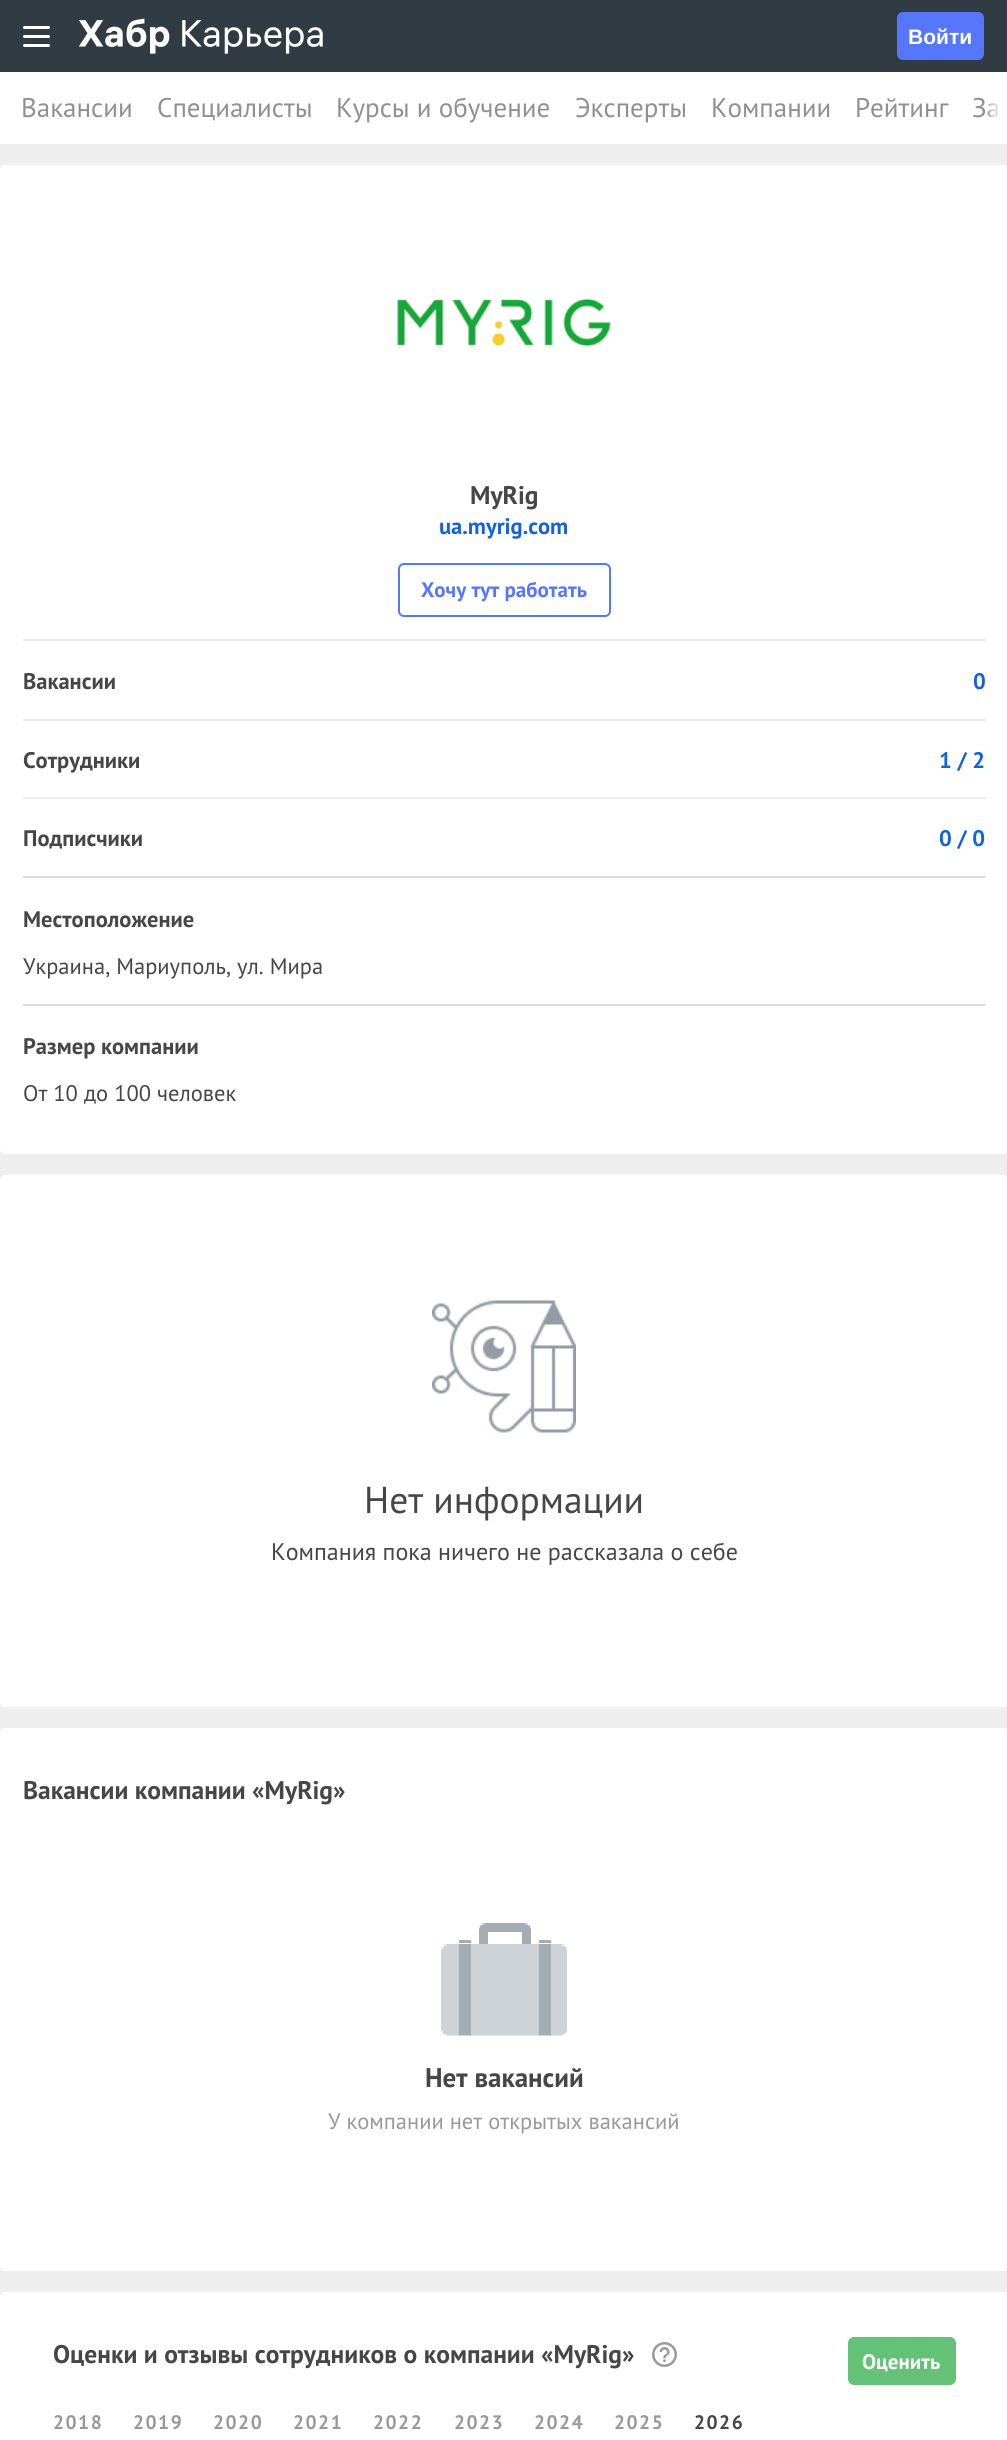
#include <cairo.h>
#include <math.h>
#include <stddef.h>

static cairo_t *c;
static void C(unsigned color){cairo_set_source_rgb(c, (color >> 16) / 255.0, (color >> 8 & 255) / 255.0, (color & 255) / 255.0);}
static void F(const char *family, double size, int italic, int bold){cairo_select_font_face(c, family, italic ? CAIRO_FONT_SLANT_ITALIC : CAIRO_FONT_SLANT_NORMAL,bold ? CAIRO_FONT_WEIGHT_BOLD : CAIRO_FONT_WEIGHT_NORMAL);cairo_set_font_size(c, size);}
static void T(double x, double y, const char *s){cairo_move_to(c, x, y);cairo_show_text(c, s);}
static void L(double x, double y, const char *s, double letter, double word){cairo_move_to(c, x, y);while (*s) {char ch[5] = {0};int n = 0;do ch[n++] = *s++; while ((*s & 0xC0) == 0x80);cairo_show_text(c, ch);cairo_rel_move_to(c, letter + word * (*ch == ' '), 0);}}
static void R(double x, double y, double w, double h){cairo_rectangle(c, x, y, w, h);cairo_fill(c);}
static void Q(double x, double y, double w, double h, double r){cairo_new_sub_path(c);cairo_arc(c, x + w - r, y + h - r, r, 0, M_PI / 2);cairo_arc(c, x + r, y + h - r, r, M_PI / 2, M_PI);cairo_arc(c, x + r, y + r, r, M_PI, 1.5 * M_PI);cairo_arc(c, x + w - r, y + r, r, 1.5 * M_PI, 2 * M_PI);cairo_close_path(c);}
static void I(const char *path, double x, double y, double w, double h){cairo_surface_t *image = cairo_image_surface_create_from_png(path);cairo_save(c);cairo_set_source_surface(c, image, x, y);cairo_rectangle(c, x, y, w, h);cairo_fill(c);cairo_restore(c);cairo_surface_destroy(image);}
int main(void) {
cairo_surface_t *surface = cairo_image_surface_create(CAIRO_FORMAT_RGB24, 1007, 2440);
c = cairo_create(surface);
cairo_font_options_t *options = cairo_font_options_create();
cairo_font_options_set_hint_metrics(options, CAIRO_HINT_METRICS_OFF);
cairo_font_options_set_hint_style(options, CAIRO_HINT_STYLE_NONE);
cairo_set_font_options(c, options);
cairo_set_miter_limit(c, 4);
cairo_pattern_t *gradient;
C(0xeeeeee);
cairo_paint(c);
C(0x303b44);
R(0,0,1007,72);
C(0xffffff);
Q(23,35,27,3,1.5);
cairo_fill(c);
Q(23,26,27,3,1.5);
cairo_fill(c);
Q(23,44,27,3,1.5);
cairo_fill(c);
I("1.png",78,18,245,36);
C(0x5677fc);
Q(897,12,87,48,6);
cairo_fill(c);
F("Liberation Sans",21,0,1);
C(0xffffff);
T(908,44,"Войти");
R(0,72,1003,72);
F("PT Sans",27,0,0);
C(0x909090);
T(972,117,"За");
gradient = cairo_pattern_create_linear(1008,108,986,108);
cairo_pattern_add_color_stop_rgba(gradient,.2,1,1,1,1);
cairo_pattern_add_color_stop_rgba(gradient,.75,1,1,1,.5);
cairo_pattern_add_color_stop_rgba(gradient,1,1,1,1,0);
cairo_set_source(c,gradient);
cairo_pattern_destroy(gradient);
R(988,72,19,72);
C(0x909090);
T(21,117,"Вакансии");
T(157,117,"Специалисты");
T(336,117,"Курсы и обучение");
T(575,117,"Эксперты");
T(711,117,"Компании");
T(855,117,"Рейтинг");
C(0xffffff);
Q(0,165,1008,989,5);
cairo_fill(c);
I("2.png",397,298,214,49);
F("PT Sans",25.5,0,1);
C(0x464646);
T(470,504,"MyRig");
F("PT Sans",22.5,0,1);
C(0x1463d9);
T(439,534,"ua.myrig.com");
Q(399,564,211,52,5);
C(0x5677fc);
cairo_stroke(c);
F("PT Sans",21,0,1);
T(421,597,"Хочу тут работать");
C(0xededed);
R(23,639,963,2);
F("PT Sans",22.5,0,1);
C(0x464646);
T(23,689,"Вакансии");
C(0x1463d9);
T(973,689,"0");
C(0xededed);
R(23,719,963,2);
C(0x464646);
T(23,768,"Сотрудники");
C(0x1463d9);
T(939,768,"1 / 2");
C(0xededed);
R(23,797,963,2);
C(0x464646);
T(23,846,"Подписчики");
C(0x1463d9);
T(939,846,"0 / 0");
C(0xdcdfe0);
R(23,876,963,2);
C(0x464646);
T(23,927,"Местоположение");
F("PT Sans",22.5,0,0);
T(23,974,"Украина, Мариуполь, ул. Мира");
C(0xdcdfe0);
R(23,1004,963,2);
F("PT Sans",22.5,0,1);
C(0x464646);
T(23,1054,"Размер компании");
F("PT Sans",22.5,0,0);
T(23,1101,"От 10 до 100 человек");
C(0xffffff);
Q(0,1175,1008,532,5);
cairo_fill(c);
I("3.png",432,1300,144,133);
F("PT Sans",37.5,0,0);
C(0x464646);
T(364,1513,"Нет информации");
F("PT Sans",24,0,0);
T(271,1560,"Компания пока ничего не рассказала о себе");
C(0xffffff);
Q(0,1728,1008,543,5);
cairo_fill(c);
F("PT Sans",25.5,0,1);
C(0x464646);
T(23,1799,"Вакансии компании «MyRig»");
I("4.png",441,1923,126,113);
F("PT Sans",27,0,1);
T(425,2087,"Нет вакансий");
F("PT Sans",22.5,0,0);
C(0x999999);
T(328,2129,"У компании нет открытых вакансий");
C(0xffffff);
Q(0,2292,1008,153,5);
cairo_fill(c);
F("PT Sans",25.5,0,1);
C(0x464646);
T(53,2363,"Оценки и отзывы сотрудников о компании «MyRig»");
I("5.png",652,2342,25,25);
C(0x64c178);
Q(848,2337,108,48,6);
cairo_fill(c);
F("PT Sans",21,0,1);
C(0xffffff);
T(862,2369,"Оценить");
F("PT Sans",19.5,0,1);
C(0x999999);
L(53,2429,"2018",1.5,0);
L(133,2429,"2019",1.5,0);
L(213,2429,"2020",1.5,0);
L(293,2429,"2021",1.5,0);
L(373,2429,"2022",1.5,0);
L(454,2429,"2023",1.5,0);
L(534,2429,"2024",1.5,0);
L(614,2429,"2025",1.5,0);
C(0x464646);
L(694,2429,"2026",1.5,0);
cairo_surface_write_to_png(surface, "o.png");
cairo_font_options_destroy(options);
cairo_destroy(c);
cairo_surface_destroy(surface);
return 0;
}
